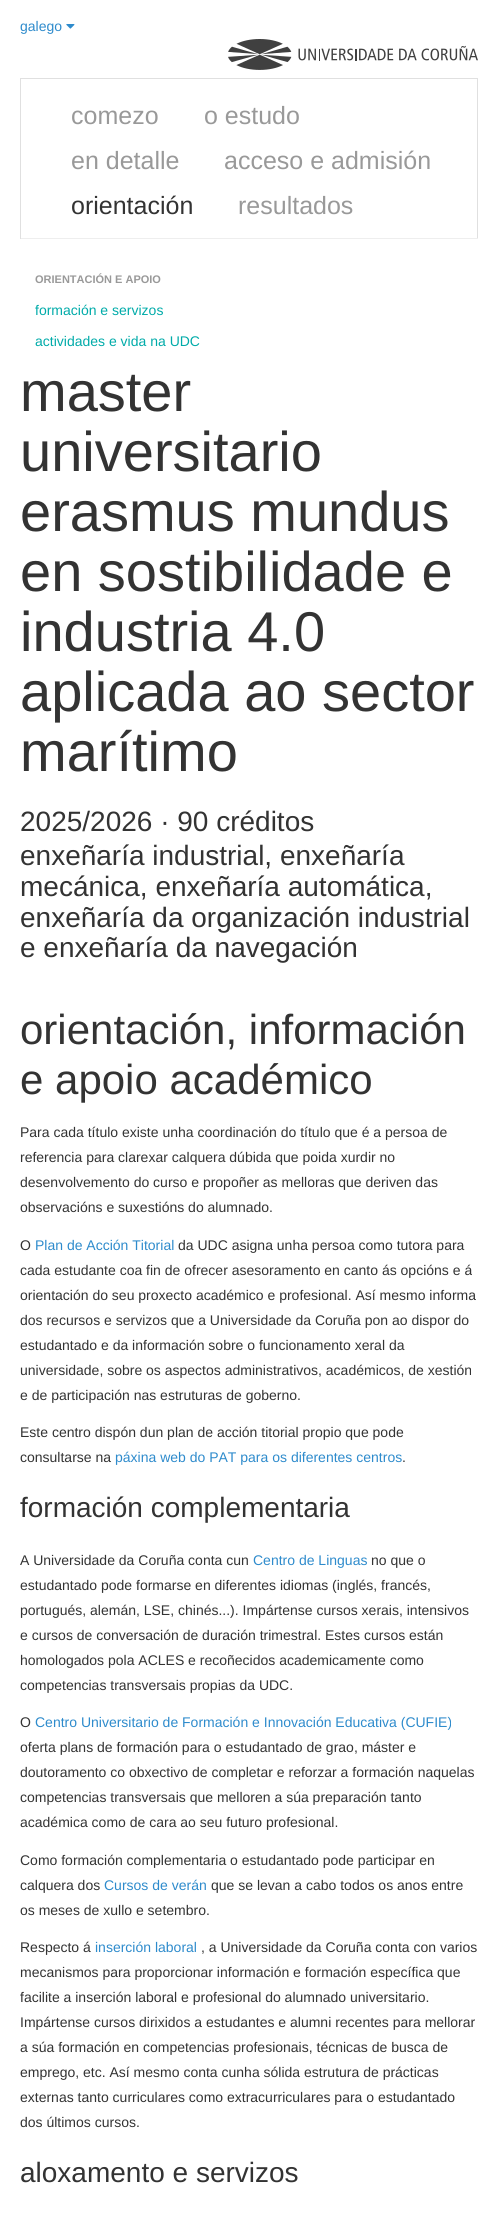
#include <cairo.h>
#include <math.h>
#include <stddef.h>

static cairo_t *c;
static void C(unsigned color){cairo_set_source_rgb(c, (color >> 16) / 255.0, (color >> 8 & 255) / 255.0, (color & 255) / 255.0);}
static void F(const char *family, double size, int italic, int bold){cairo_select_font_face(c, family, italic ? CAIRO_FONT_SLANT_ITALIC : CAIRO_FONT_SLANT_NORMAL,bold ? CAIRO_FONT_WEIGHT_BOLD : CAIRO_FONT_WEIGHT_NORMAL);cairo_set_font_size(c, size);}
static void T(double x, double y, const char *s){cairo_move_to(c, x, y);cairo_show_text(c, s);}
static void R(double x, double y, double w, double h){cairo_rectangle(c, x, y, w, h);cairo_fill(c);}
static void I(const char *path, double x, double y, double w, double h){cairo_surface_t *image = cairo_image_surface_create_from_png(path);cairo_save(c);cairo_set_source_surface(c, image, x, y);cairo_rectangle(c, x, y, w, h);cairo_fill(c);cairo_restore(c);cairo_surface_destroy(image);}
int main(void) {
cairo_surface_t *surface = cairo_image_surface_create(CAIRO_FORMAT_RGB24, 498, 2216);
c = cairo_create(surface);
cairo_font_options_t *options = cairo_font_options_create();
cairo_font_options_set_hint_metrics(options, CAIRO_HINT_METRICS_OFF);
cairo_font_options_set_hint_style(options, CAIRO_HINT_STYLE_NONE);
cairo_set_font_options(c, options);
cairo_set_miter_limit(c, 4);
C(0xffffff);
cairo_paint(c);
F("Liberation Sans",14,0,0);
C(0x2e8bcc);
T(20,31,"galego");
I("1.png",66,24,9,5);
I("2.png",228,39,250,31);
C(0xe0e0e0);
R(20,78,458,1);
R(477,78,1,161);
C(0xeeeeee);
R(20,238,458,1);
C(0xe0e0e0);
R(20,78,1,161);
F("Liberation Sans",25,0,0);
C(0x999999);
T(71,124,"comezo");
T(204,124,"o estudo");
T(71,169,"en detalle");
T(224,169,"acceso e admisión");
C(0x333333);
T(71,214,"orientación");
C(0x999999);
T(238,214,"resultados");
F("Liberation Sans",11,0,1);
T(35,283,"ORIENTACIÓN E APOIO");
F("Liberation Sans",14,0,0);
C(0x00aba9);
T(35,315,"formación e servizos");
T(35,346,"actividades e vida na UDC");
F("Liberation Sans",56,0,0);
C(0x333333);
T(20,411,"master");
T(20,471,"universitario");
T(20,531,"erasmus mundus");
T(20,591,"en sostibilidade e");
T(20,651,"industria 4.0");
T(20,711,"aplicada ao sector");
T(20,771,"marítimo");
F("Liberation Sans",28,0,0);
T(20,831,"2025/2026 · 90 créditos");
T(20,865,"enxeñaría industrial, enxeñaría");
T(20,896,"mecánica, enxeñaría automática,");
T(20,927,"enxeñaría da organización industrial");
T(20,957,"e enxeñaría da navegación");
F("Liberation Sans",42,0,0);
T(20,1044,"orientación, información");
T(20,1094,"e apoio académico");
F("Liberation Sans",14,0,0);
T(20,1137,"Para cada título existe unha coordinación do título que é a persoa de");
T(20,1162,"referencia para clarexar calquera dúbida que poida xurdir no");
T(20,1187,"desenvolvemento do curso e propoñer as melloras que deriven das");
T(20,1212,"observacións e suxestións do alumnado.");
T(20,1250,"O");
C(0x2e8bcc);
T(35,1250,"Plan de Acción Titorial");
C(0x333333);
T(178,1250,"da UDC asigna unha persoa como tutora para");
T(20,1275,"cada estudante coa fin de ofrecer asesoramento en canto ás opcións e á");
T(20,1300,"orientación do seu proxecto académico e profesional. Así mesmo informa");
T(20,1325,"dos recursos e servizos que a Universidade da Coruña pon ao dispor do");
T(20,1350,"estudantado e da información sobre o funcionamento xeral da");
T(20,1375,"universidade, sobre os aspectos administrativos, académicos, de xestión");
T(20,1400,"e de participación nas estruturas de goberno.");
T(20,1437,"Este centro dispón dun plan de acción titorial propio que pode");
T(20,1462,"consultarse na");
C(0x2e8bcc);
T(115,1462,"páxina web do PAT para os diferentes centros");
C(0x333333);
T(402,1462,".");
F("Liberation Sans",28,0,0);
T(20,1517,"formación complementaria");
F("Liberation Sans",14,0,0);
T(20,1565,"A Universidade da Coruña conta cun");
C(0x2e8bcc);
T(253,1565,"Centro de Linguas");
C(0x333333);
T(371,1565,"no que o");
T(20,1590,"estudantado pode formarse en diferentes idiomas (inglés, francés,");
T(20,1615,"portugués, alemán, LSE, chinés...). Impártense cursos xerais, intensivos");
T(20,1640,"e cursos de conversación de duración trimestral. Estes cursos están");
T(20,1665,"homologados pola ACLES e recoñecidos academicamente como");
T(20,1690,"competencias transversais propias da UDC.");
T(20,1727,"O");
C(0x2e8bcc);
T(35,1727,"Centro Universitario de Formación e Innovación Educativa (CUFIE)");
C(0x333333);
T(20,1752,"oferta plans de formación para o estudantado de grao, máster e");
T(20,1777,"doutoramento co obxectivo de completar e reforzar a formación naquelas");
T(20,1802,"competencias transversais que melloren a súa preparación tanto");
T(20,1827,"académica como de cara ao seu futuro profesional.");
T(20,1865,"Como formación complementaria o estudantado pode participar en");
T(20,1890,"calquera dos");
C(0x2e8bcc);
T(104,1890,"Cursos de verán");
C(0x333333);
T(211,1890,"que se levan a cabo todos os anos entre");
T(20,1915,"os meses de xullo e setembro.");
T(20,1952,"Respecto á");
C(0x2e8bcc);
T(95,1952,"inserción laboral");
C(0x333333);
T(201,1952,", a Universidade da Coruña conta con varios");
T(20,1977,"mecanismos para proporcionar información e formación específica que");
T(20,2002,"facilite a inserción laboral e profesional do alumnado universitario.");
T(20,2027,"Impártense cursos dirixidos a estudantes e alumni recentes para mellorar");
T(20,2052,"a súa formación en competencias profesionais, técnicas de busca de");
T(20,2077,"emprego, etc. Así mesmo conta cunha sólida estrutura de prácticas");
T(20,2102,"externas tanto curriculares como extracurriculares para o estudantado");
T(20,2127,"dos últimos cursos.");
F("Liberation Sans",28,0,0);
T(20,2182,"aloxamento e servizos");
cairo_surface_write_to_png(surface, "o.png");
cairo_font_options_destroy(options);
cairo_destroy(c);
cairo_surface_destroy(surface);
return 0;
}
